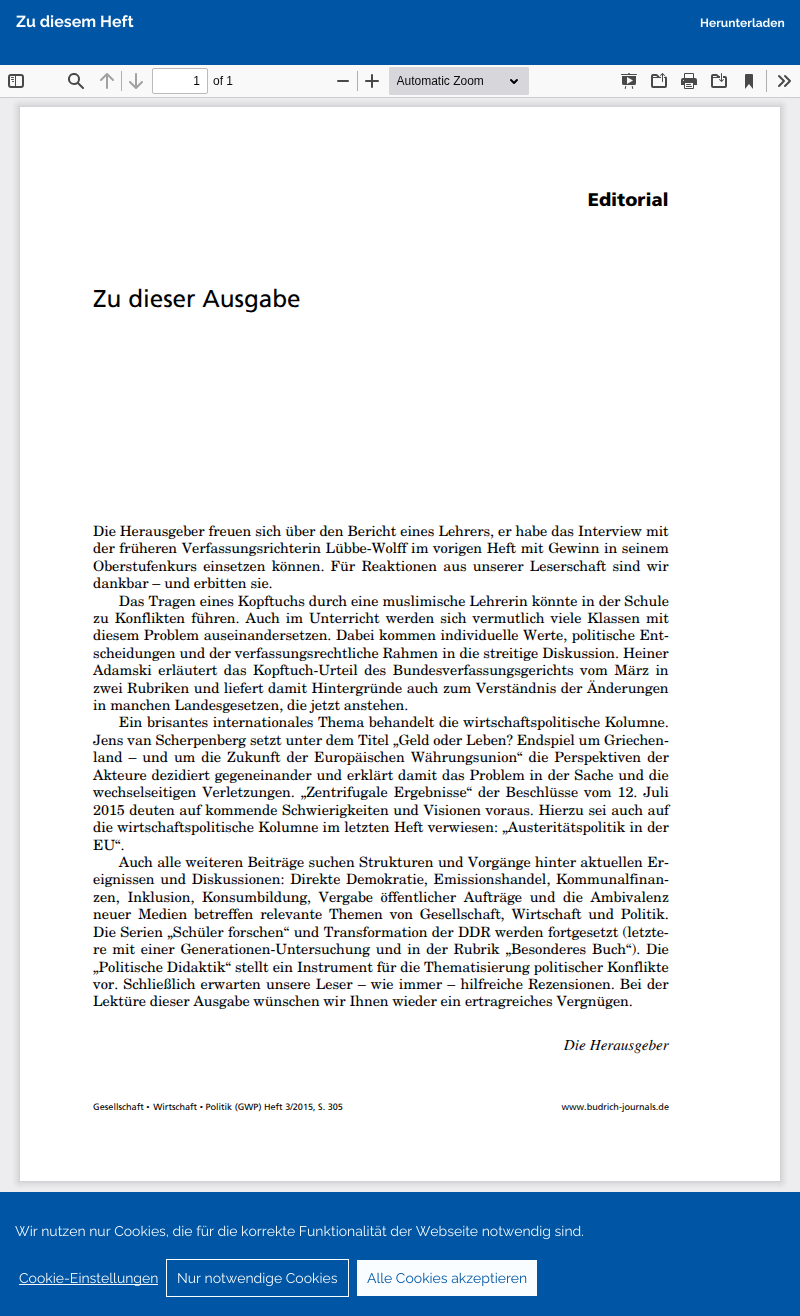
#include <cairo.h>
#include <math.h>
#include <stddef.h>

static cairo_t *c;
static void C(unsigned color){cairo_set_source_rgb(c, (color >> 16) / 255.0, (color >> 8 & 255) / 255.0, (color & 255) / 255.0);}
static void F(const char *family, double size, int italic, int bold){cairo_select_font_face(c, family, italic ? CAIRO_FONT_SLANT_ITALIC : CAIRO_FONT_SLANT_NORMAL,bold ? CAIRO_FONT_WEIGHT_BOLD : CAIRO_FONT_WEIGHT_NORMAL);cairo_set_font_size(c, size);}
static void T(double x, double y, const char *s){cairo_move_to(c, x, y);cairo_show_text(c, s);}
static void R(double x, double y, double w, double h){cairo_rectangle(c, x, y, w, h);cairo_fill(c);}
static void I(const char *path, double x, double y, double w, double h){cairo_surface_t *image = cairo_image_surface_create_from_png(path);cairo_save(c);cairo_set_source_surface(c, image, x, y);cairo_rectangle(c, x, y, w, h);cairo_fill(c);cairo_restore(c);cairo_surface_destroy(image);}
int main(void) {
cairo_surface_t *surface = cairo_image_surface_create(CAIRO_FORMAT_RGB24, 800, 1316);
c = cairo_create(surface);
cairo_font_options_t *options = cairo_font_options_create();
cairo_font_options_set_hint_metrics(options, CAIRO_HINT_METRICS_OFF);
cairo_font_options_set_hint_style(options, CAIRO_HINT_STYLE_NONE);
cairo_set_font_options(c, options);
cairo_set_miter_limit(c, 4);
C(0xffffff);
cairo_paint(c);
C(0x0056a4);
R(0,0,800,65);
F("Raleway",16,0,1);
C(0xfafdff);
T(16,27,"Zu diesem Heft");
F("Raleway",12,0,1);
T(700,27,"Herunterladen");
I("1.png",0,65,800,1127);
C(0x0056a4);
R(0,1192,800,124);
F("Raleway",14,0,0);
C(0xfafdff);
T(15,1236,"Wir nutzen nur Cookies, die für die korrekte Funktionalität der Webseite notwendig sind.");
R(19,1284,139,1);
T(19,1283,"Cookie-Einstellungen");
cairo_rectangle(c,166.5,1259.5,182,37);
cairo_set_line_width(c,1);
cairo_stroke(c);
T(177,1283,"Nur notwendige Cookies");
R(357,1260,180,36);
C(0x0056a4);
T(367,1283,"Alle Cookies akzeptieren");
cairo_surface_write_to_png(surface, "o.png");
cairo_font_options_destroy(options);
cairo_destroy(c);
cairo_surface_destroy(surface);
return 0;
}
